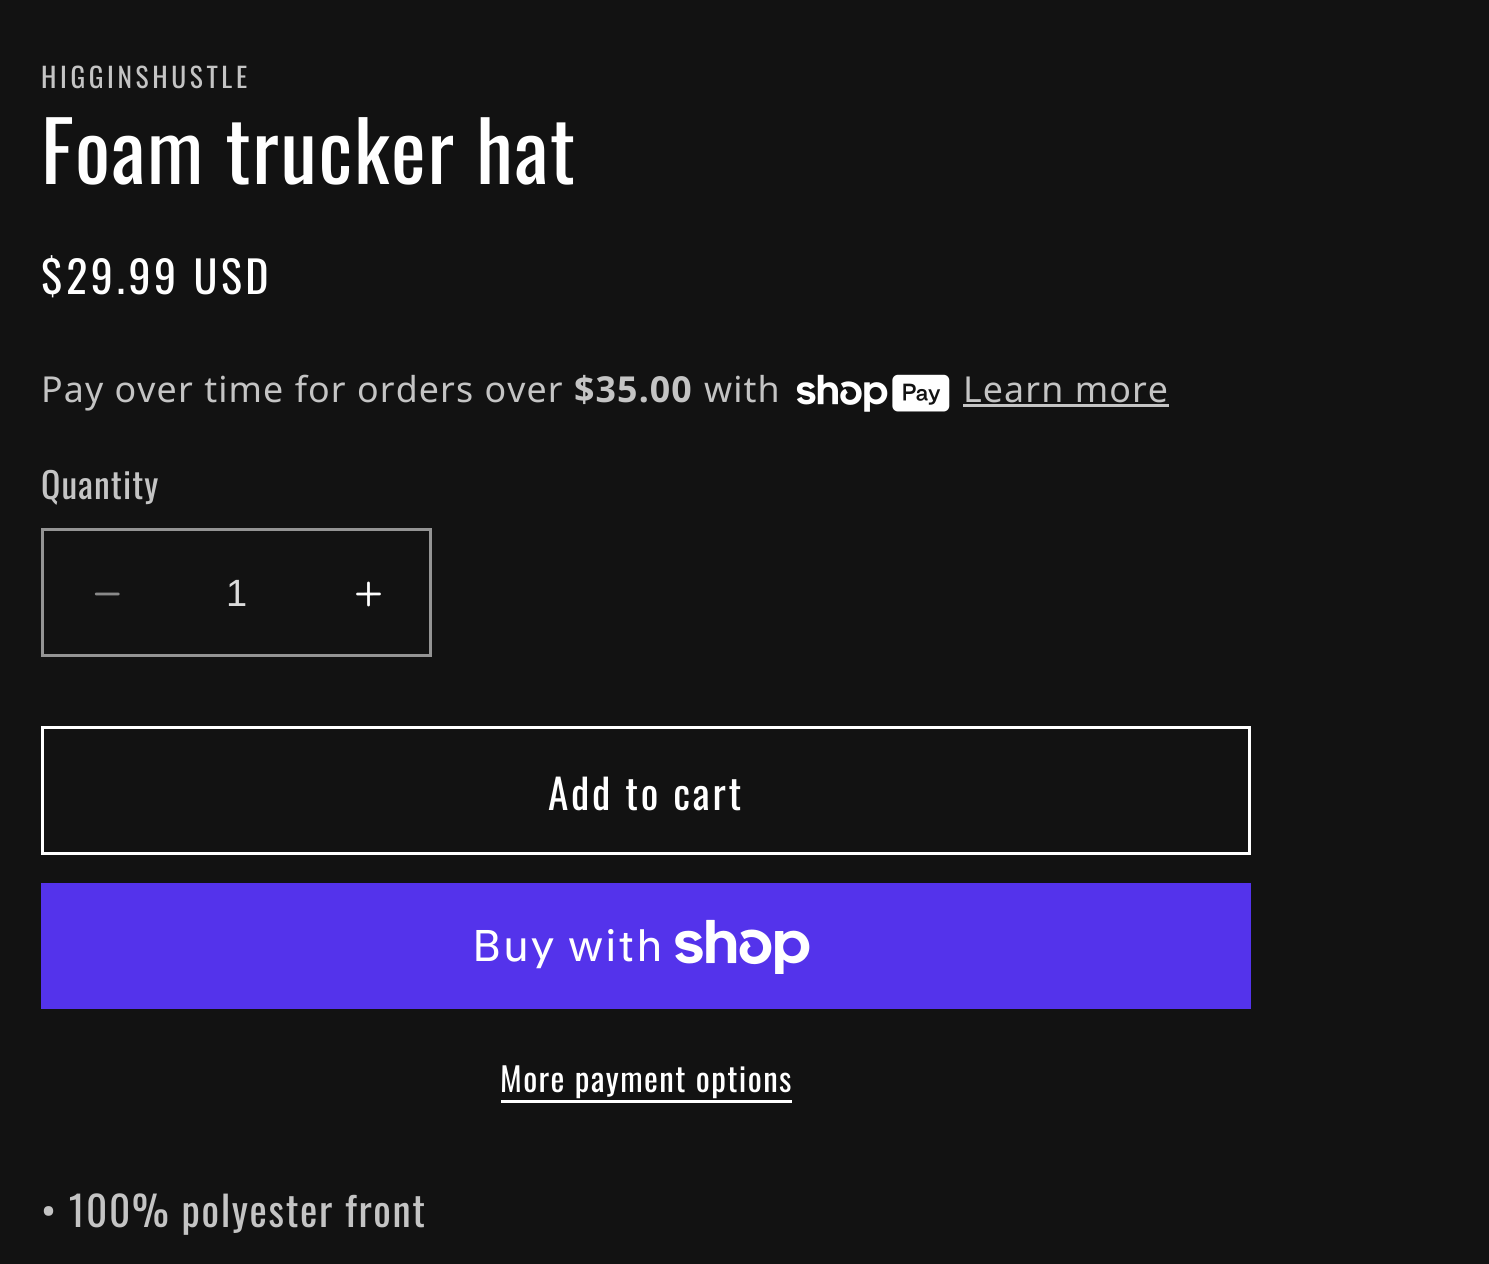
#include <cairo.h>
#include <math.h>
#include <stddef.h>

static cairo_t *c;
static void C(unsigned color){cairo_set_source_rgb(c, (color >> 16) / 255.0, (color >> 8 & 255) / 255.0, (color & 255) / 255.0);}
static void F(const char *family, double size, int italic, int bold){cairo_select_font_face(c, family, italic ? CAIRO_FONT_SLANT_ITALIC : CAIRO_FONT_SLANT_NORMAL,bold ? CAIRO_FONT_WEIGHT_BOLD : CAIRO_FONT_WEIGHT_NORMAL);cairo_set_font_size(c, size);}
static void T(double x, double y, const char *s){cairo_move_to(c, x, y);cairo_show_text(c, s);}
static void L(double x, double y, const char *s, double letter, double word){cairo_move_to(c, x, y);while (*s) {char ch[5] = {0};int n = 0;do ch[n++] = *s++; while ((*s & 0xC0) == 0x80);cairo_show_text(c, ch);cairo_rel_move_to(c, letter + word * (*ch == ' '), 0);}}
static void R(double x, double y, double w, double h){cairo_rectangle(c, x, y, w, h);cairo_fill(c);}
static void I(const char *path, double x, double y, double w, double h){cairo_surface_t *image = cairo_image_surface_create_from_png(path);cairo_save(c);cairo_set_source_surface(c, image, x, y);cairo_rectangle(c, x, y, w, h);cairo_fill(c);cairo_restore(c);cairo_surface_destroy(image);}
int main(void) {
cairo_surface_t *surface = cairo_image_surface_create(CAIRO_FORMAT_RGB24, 1489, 1264);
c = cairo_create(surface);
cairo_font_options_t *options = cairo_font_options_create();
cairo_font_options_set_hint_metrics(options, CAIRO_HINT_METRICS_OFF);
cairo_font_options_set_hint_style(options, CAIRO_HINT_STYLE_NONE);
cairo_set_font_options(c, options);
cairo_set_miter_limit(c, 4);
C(0x121212);
cairo_paint(c);
F("Oswald",27.5,0,0);
C(0xc4c4c4);
L(41,88,"HIGGINSHUSTLE",3.6,0);
F("Oswald",82.5,0,0);
C(0xffffff);
L(41,184,"Foam trucker hat",1.65,0);
F("Oswald",44,0,0);
L(41,294,"$29.99 USD",3.6,0);
F("Noto Sans",35.75,0,0);
C(0xc4c4c4);
L(41,402,"Pay over time for orders over",1.1,0);
F("Noto Sans",35.75,0,1);
L(574,402,"$35.00",1.1,0);
F("Noto Sans",35.75,0,0);
L(704,402,"with",1.1,0);
I("1.png",796,374,154,38);
L(963,402,"Learn more",1.1,0);
R(963,404,206,3);
F("Oswald",35.75,0,0);
L(41,499,"Quantity",1.1,0);
I("2.png",94,592,26,4);
I("3.png",356,581,25,26);
cairo_rectangle(c,42.5,529.5,388,126);
C(0x949494);
cairo_set_line_width(c,3);
cairo_stroke(c);
F("Liberation Sans",38,0,0);
C(0xdbdbdb);
T(226,606,"1");
cairo_rectangle(c,42.5,727.5,1207,126);
C(0xffffff);
cairo_stroke(c);
F("Oswald",41.25,0,0);
L(548,810,"Add to cart",2.75,0);
C(0x5433eb);
R(41,883,1210,126);
F("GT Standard",44,0,0);
C(0xffffff);
L(472,961,"Buy with",1.65,0);
I("4.png",675,919,135,55);
F("Oswald",33,0,0);
L(500,1092,"More payment options",1.4,0);
R(501,1100,291,3);
F("Oswald",41.25,0,0);
C(0xc4c4c4);
L(41,1227,"• 100% polyester front",1.65,0);
cairo_surface_write_to_png(surface, "o.png");
cairo_font_options_destroy(options);
cairo_destroy(c);
cairo_surface_destroy(surface);
return 0;
}
